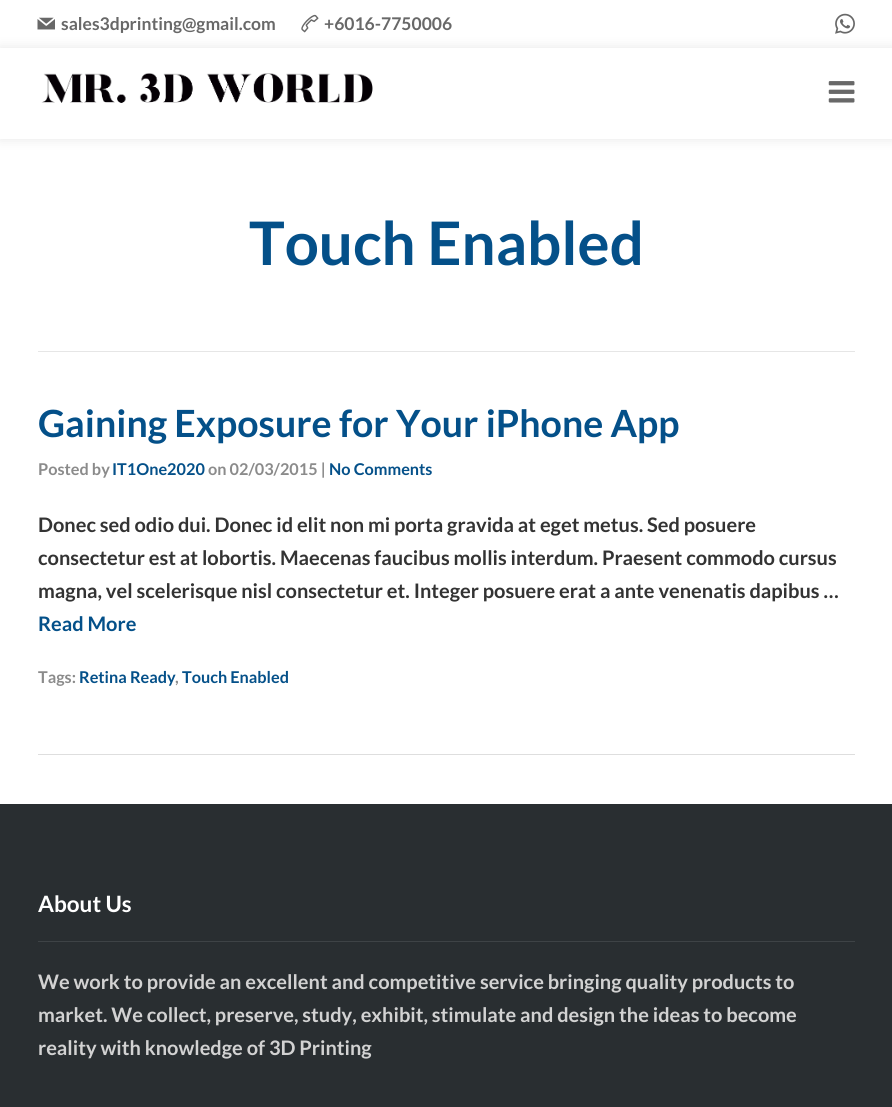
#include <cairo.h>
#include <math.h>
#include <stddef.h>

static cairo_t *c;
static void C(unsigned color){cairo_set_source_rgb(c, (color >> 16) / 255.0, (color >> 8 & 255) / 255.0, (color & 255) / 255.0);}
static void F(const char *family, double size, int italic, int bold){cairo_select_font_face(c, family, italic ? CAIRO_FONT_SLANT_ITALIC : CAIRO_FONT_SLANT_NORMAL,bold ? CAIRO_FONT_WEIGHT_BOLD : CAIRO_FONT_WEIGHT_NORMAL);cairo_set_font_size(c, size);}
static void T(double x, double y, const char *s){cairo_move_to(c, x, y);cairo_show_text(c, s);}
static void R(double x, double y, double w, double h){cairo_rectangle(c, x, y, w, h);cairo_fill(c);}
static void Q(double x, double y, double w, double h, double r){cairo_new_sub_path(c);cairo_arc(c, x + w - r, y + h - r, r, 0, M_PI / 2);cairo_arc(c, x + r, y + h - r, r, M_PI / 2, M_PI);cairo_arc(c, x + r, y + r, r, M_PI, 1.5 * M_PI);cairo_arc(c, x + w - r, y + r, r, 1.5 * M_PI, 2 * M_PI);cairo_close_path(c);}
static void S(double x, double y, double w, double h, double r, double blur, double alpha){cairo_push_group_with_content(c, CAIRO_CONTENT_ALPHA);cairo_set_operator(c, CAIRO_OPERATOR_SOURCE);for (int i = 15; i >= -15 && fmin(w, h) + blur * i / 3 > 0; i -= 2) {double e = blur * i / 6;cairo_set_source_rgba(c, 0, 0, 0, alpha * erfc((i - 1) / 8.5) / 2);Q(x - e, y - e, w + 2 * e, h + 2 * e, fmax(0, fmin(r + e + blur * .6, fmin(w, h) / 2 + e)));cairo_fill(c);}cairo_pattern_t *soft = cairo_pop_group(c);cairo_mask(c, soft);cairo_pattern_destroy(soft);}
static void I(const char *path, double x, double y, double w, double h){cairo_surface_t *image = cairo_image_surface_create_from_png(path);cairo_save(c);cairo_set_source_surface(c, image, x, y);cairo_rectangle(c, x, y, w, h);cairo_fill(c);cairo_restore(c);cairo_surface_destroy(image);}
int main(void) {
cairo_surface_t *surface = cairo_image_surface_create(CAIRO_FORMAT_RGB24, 892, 1107);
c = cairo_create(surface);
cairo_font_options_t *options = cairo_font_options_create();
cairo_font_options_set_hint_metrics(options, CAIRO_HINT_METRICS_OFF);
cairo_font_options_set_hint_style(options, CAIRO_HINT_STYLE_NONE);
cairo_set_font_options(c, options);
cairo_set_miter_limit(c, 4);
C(0xffffff);
cairo_paint(c);
I("1.png",37,17,18,13);
F("Lato",17.5,0,1);
C(0x686868);
T(61,30,"sales3dprinting@gmail.com");
I("2.png",301,14,18,19);
T(324,30,"+6016-7750006");
I("3.png",835,13,20,21);
cairo_save(c);
cairo_set_fill_rule(c,CAIRO_FILL_RULE_EVEN_ODD);
cairo_new_path(c);
cairo_move_to(c,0,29);
cairo_line_to(c,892,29);
cairo_line_to(c,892,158);
cairo_line_to(c,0,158);
cairo_close_path(c);
cairo_move_to(c,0,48);
cairo_line_to(c,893,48);
cairo_line_to(c,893,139);
cairo_line_to(c,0,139);
cairo_close_path(c);
cairo_clip(c);
C(0x000000);
S(0,48,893,91,0,6,.1);
cairo_restore(c);
I("4.png",41,73,332,30);
I("5.png",828,81,27,22);
C(0xe6e6e6);
R(38,351,817,1);
F("Lato",60,0,1);
C(0x045089);
T(249,265,"Touch Enabled");
C(0xdedede);
R(38,754,817,1);
F("Lato",37.5,0,1);
C(0x045089);
T(38,437,"Gaining Exposure for Your iPhone App");
F("Lato",16.25,0,1);
C(0x8b8b8b);
T(38,475,"Posted by");
C(0x045089);
T(112,475,"IT1One2020");
C(0x8b8b8b);
T(208,475,"on 02/03/2015 |");
C(0x045089);
T(329,475,"No Comments");
F("Lato",20,0,1);
C(0x333333);
T(38,532,"Donec sed odio dui. Donec id elit non mi porta gravida at eget metus. Sed posuere");
T(38,565,"consectetur est at lobortis. Maecenas faucibus mollis interdum. Praesent commodo cursus");
T(38,598,"magna, vel scelerisque nisl consectetur et. Integer posuere erat a ante venenatis dapibus …");
C(0x045089);
T(38,631,"Read More");
F("Lato",16.25,0,1);
C(0x8b8b8b);
T(38,683,"Tags:");
C(0x045089);
T(79,683,"Retina Ready");
C(0x8b8b8b);
T(175,683,",");
C(0x045089);
T(182,683,"Touch Enabled");
C(0x292e31);
R(0,804,892,303);
C(0x3e4346);
R(38,941,817,1);
F("Lato",22.5,0,1);
C(0xffffff);
T(38,912,"About Us");
F("Lato",20,0,1);
C(0xd2d2d2);
T(38,989,"We work to provide an excellent and competitive service bringing quality products to");
T(38,1022,"market. We collect, preserve, study, exhibit, stimulate and design the ideas to become");
T(38,1055,"reality with knowledge of 3D Printing");
cairo_surface_write_to_png(surface, "o.png");
cairo_font_options_destroy(options);
cairo_destroy(c);
cairo_surface_destroy(surface);
return 0;
}
